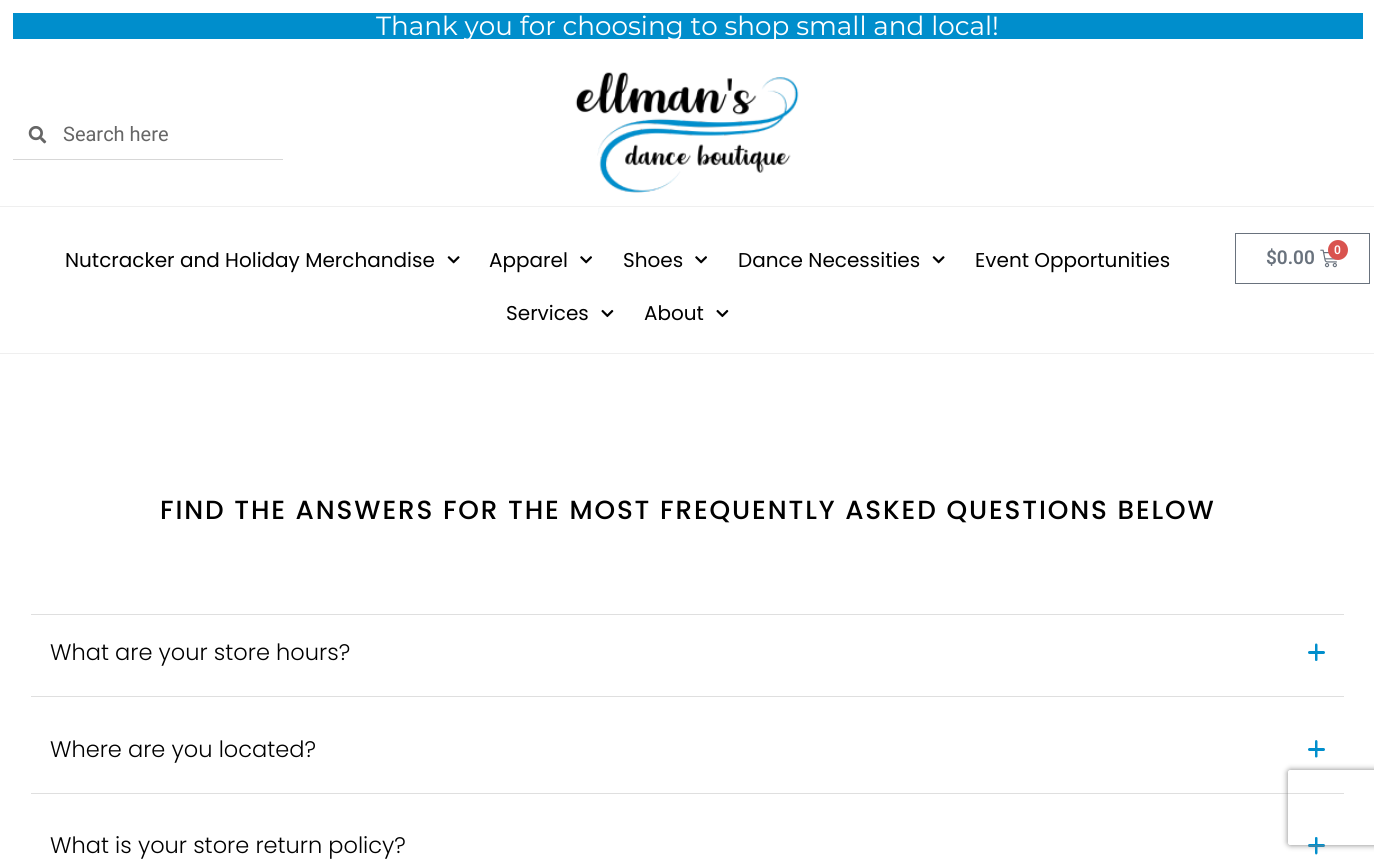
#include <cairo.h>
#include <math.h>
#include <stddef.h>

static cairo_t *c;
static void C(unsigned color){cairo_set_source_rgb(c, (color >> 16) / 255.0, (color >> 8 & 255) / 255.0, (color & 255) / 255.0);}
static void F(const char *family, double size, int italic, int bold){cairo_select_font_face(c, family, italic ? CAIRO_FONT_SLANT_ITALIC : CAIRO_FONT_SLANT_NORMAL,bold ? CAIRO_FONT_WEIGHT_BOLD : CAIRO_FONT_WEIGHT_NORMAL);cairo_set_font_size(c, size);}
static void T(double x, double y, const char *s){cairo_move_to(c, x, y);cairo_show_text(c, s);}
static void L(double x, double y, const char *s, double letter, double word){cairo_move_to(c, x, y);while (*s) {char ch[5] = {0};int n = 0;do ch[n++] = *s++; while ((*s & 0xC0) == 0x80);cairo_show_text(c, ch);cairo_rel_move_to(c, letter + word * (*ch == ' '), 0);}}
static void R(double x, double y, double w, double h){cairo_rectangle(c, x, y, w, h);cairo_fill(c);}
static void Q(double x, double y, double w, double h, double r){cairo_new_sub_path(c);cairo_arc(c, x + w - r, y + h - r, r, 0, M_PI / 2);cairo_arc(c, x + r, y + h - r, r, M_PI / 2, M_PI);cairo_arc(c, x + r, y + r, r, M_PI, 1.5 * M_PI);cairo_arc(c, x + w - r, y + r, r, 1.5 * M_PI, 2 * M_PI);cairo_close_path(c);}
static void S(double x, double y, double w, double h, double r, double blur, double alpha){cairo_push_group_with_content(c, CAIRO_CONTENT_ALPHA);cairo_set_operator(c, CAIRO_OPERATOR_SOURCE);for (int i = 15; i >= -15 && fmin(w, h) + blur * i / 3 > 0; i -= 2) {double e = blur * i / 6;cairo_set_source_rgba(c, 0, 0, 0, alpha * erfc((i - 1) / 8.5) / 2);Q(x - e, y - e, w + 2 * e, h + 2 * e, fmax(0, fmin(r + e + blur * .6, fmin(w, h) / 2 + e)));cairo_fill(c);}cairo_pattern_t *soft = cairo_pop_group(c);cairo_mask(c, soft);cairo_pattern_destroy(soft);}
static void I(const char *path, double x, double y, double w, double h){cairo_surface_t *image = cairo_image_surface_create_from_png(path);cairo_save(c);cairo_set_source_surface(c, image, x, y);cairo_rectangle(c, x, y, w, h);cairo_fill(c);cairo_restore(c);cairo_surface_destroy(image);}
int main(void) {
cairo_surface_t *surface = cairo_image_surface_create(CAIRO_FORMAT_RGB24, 1374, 862);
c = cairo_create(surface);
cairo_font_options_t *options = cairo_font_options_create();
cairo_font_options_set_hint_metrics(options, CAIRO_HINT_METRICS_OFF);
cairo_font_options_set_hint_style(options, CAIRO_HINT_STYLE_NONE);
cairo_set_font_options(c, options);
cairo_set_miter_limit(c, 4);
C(0xffffff);
cairo_paint(c);
C(0xefefef);
R(0,206,1374,1);
C(0x008ecc);
R(13,13,1350,26);
F("Montserrat",26.25,0,0);
C(0xffffff);
T(376,35,"Thank you for choosing to shop small and local!");
C(0xd7d7d7);
R(13,159,270,1);
I("1.png",28,126,19,18);
F("Roboto",20,0,0);
C(0x666666);
T(63,141,"Search here");
I("2.png",575,72,224,121);
C(0xefefef);
R(0,353,1374,1);
F("Poppins",20,0,0);
C(0x000000);
T(65,267,"Nutcracker and Holiday Merchandise");
I("3.png",447,256,13,8);
T(489,267,"Apparel");
I("4.png",580,256,12,8);
T(623,267,"Shoes");
I("4.png",695,256,12,8);
T(738,267,"Dance Necessities");
I("3.png",932,256,13,8);
T(975,267,"Event Opportunities");
T(506,320,"Services");
I("5.png",601,309,13,9);
T(644,320,"About");
I("5.png",716,309,13,9);
cairo_rectangle(c,1235.5,233.5,134,50);
C(0x69727d);
cairo_set_line_width(c,1);
cairo_stroke(c);
F("Roboto SemiBold",19,0,0);
T(1266,264,"$0.00");
I("6.png",1320,249,17,19);
C(0xd9534f);
cairo_arc(c,1338,250,10,0,2 * M_PI);
cairo_fill(c);
F("Roboto SemiBold",12,0,0);
C(0xffffff);
T(1334,254,"0");
F("Poppins Medium",26.25,0,0);
C(0x000000);
L(160,519,"FIND THE ANSWERS FOR THE MOST FREQUENTLY ASKED QUESTIONS BELOW",1.88,0);
C(0xdfdfdf);
R(31,614,1313,1);
R(31,696,1313,1);
F("Poppins Light",22.5,0,0);
C(0x000000);
T(50,660,"What are your store hours?");
C(0x008ecc);
Q(1308,651,17,3,1.5);
cairo_fill(c);
cairo_new_path(c);
cairo_move_to(c,1317.5,645);
cairo_line_to(c,1317.5,660);
cairo_curve_to(c,1317.5,660.5,1317,661,1316,661);
cairo_curve_to(c,1315.5,661,1315,660.5,1315,660);
cairo_line_to(c,1315,645);
cairo_curve_to(c,1315,644,1315.5,643.5,1316,643.5);
cairo_curve_to(c,1317,643.5,1317.5,644,1317.5,645);
cairo_close_path(c);
cairo_fill(c);
C(0xdfdfdf);
R(31,793,1313,1);
C(0x000000);
T(50,757,"Where are you located?");
C(0x008ecc);
Q(1308,748,17,3,1.5);
cairo_fill(c);
cairo_new_path(c);
cairo_move_to(c,1317.5,741.5);
cairo_line_to(c,1317.5,756.5);
cairo_curve_to(c,1317.5,757,1317,757.5,1316,757.5);
cairo_curve_to(c,1315.5,757.5,1315,757,1315,756.5);
cairo_line_to(c,1315,741.5);
cairo_curve_to(c,1315,741,1315.5,740,1316,740);
cairo_curve_to(c,1317,740,1317.5,741,1317.5,741.5);
cairo_close_path(c);
cairo_fill(c);
C(0x000000);
T(50,853,"What is your store return policy?");
C(0x008ecc);
Q(1308,844,17,3,1.5);
cairo_fill(c);
cairo_new_path(c);
cairo_move_to(c,1317.5,838);
cairo_line_to(c,1317.5,853);
cairo_curve_to(c,1317.5,853.5,1317,854.5,1316,854.5);
cairo_curve_to(c,1315.5,854.5,1315,853.5,1315,853);
cairo_line_to(c,1315,838);
cairo_curve_to(c,1315,837.5,1315.5,837,1316,837);
cairo_curve_to(c,1317,837,1317.5,837.5,1317.5,838);
cairo_close_path(c);
cairo_fill(c);
cairo_save(c);
cairo_set_fill_rule(c,CAIRO_FILL_RULE_EVEN_ODD);
cairo_new_path(c);
cairo_move_to(c,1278,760);
cairo_line_to(c,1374,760);
cairo_line_to(c,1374,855);
cairo_line_to(c,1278,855);
cairo_close_path(c);
cairo_move_to(c,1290.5,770);
cairo_line_to(c,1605.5,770);
cairo_curve_to(c,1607,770,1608,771,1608,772.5);
cairo_line_to(c,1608,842.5);
cairo_curve_to(c,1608,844,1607,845,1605.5,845);
cairo_line_to(c,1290.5,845);
cairo_curve_to(c,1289,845,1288,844,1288,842.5);
cairo_line_to(c,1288,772.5);
cairo_curve_to(c,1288,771,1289,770,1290.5,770);
cairo_close_path(c);
cairo_clip(c);
C(0x808080);
S(1288,770,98,75,2.5,3,1);
cairo_restore(c);
cairo_surface_write_to_png(surface, "o.png");
cairo_font_options_destroy(options);
cairo_destroy(c);
cairo_surface_destroy(surface);
return 0;
}
